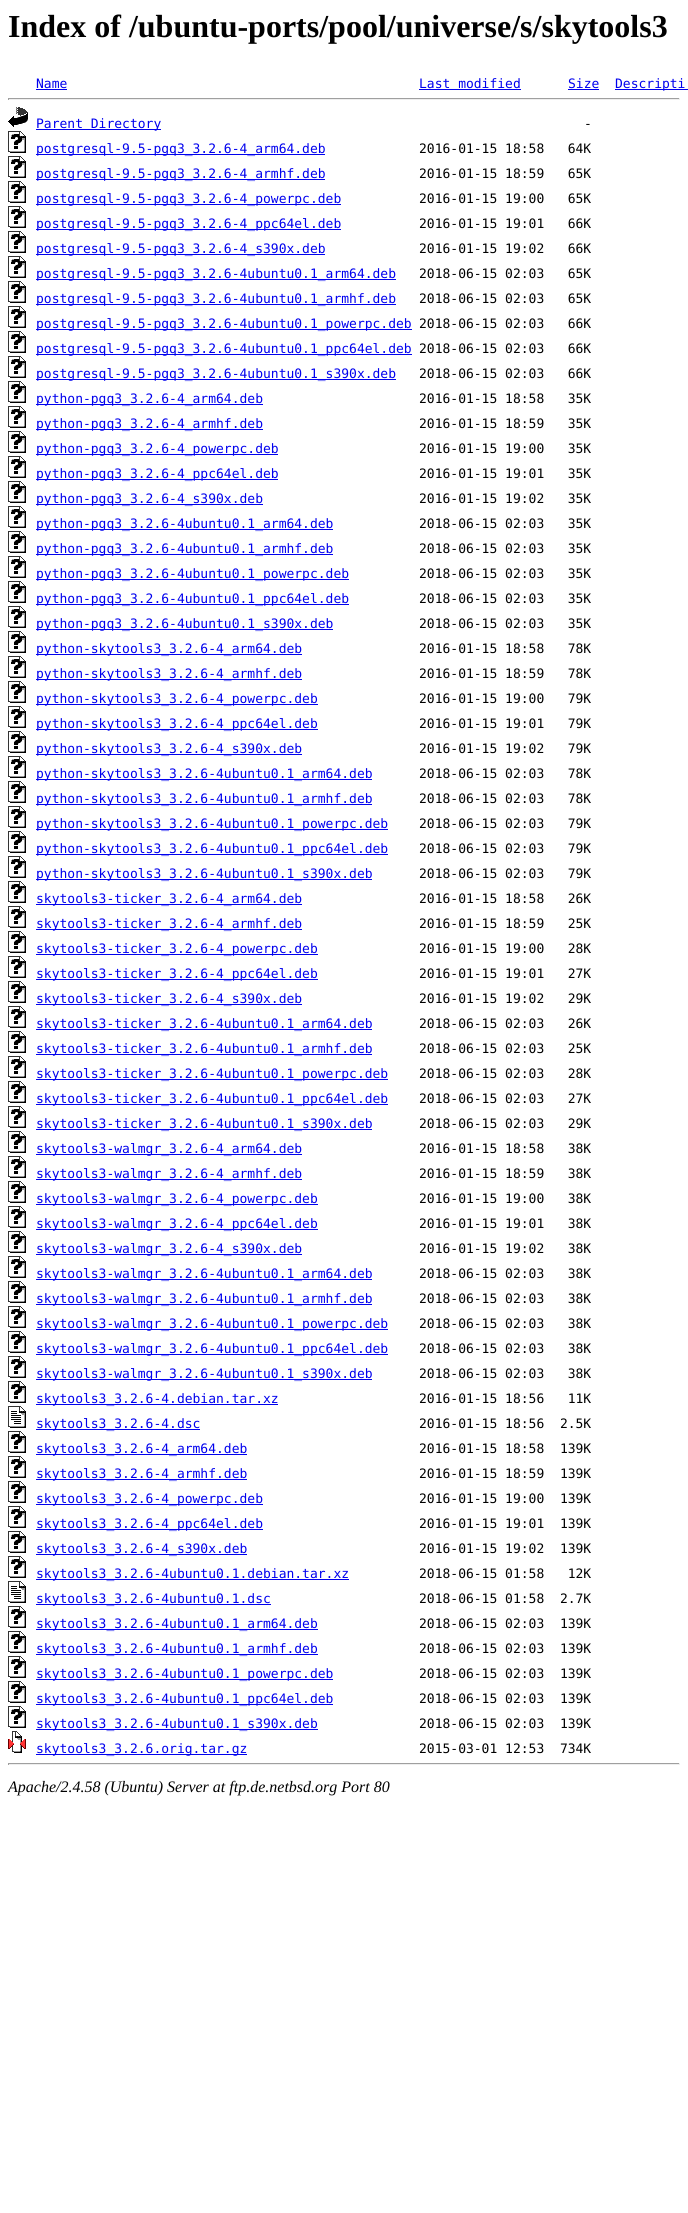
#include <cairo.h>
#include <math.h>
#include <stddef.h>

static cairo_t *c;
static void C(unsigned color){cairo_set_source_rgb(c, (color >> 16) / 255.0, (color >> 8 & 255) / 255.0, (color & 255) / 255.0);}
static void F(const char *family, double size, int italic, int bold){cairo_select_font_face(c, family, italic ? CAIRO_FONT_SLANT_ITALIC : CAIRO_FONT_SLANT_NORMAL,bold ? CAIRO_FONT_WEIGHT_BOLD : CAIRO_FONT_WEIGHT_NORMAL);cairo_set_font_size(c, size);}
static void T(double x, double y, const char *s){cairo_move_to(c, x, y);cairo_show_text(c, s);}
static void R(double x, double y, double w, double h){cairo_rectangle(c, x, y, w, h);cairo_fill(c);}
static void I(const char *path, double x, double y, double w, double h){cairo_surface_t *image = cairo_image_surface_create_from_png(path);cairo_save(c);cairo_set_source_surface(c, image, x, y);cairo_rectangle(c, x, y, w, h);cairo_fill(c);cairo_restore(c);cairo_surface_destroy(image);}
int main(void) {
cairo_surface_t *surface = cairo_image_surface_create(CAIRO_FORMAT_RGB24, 688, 2213);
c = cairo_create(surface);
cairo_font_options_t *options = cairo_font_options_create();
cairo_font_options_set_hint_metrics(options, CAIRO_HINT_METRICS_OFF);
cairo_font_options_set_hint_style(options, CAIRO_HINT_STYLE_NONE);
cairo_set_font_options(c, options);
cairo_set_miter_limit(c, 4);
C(0xffffff);
cairo_paint(c);
F("Liberation Serif",32,0,1);
C(0x000000);
T(8,37,"Index of /ubuntu-ports/pool/universe/s/skytools3");
F("DejaVu Sans Mono",13,0,0);
C(0x0000ee);
T(36,88,"Name");
R(36,89,31,1);
T(419,88,"Last modified");
R(419,89,102,1);
T(568,88,"Size");
R(568,89,31,1);
R(615,89,73,1);
T(615,88,"Descripti");
C(0x9f9f9f);
R(8,98,672,1);
C(0xeeeeee);
R(679,98,1,2);
R(8,99,672,1);
C(0x9f9f9f);
R(8,98,1,2);
I("1.png",8,107,20,20);
C(0x0000ee);
R(36,129,125,1);
T(36,128,"Parent Directory");
C(0x000000);
T(584,128,"-");
I("2.png",8,131,18,22);
C(0x0000ee);
R(36,154,289,1);
T(36,153,"postgresql-9.5-pgq3_3.2.6-4_arm64.deb");
C(0x000000);
T(419,153,"2016-01-15 18:58   64K");
I("2.png",8,156,18,22);
C(0x0000ee);
R(36,179,289,1);
T(36,178,"postgresql-9.5-pgq3_3.2.6-4_armhf.deb");
C(0x000000);
T(419,178,"2016-01-15 18:59   65K");
I("2.png",8,181,18,22);
C(0x0000ee);
R(36,204,305,1);
T(36,203,"postgresql-9.5-pgq3_3.2.6-4_powerpc.deb");
C(0x000000);
T(419,203,"2016-01-15 19:00   65K");
I("2.png",8,206,18,22);
C(0x0000ee);
R(36,229,305,1);
T(36,228,"postgresql-9.5-pgq3_3.2.6-4_ppc64el.deb");
C(0x000000);
T(419,228,"2016-01-15 19:01   66K");
I("2.png",8,231,18,22);
C(0x0000ee);
R(36,254,289,1);
T(36,253,"postgresql-9.5-pgq3_3.2.6-4_s390x.deb");
C(0x000000);
T(419,253,"2016-01-15 19:02   66K");
I("2.png",8,256,18,22);
C(0x0000ee);
R(36,279,360,1);
T(36,278,"postgresql-9.5-pgq3_3.2.6-4ubuntu0.1_arm64.deb");
C(0x000000);
T(419,278,"2018-06-15 02:03   65K");
I("2.png",8,281,18,22);
C(0x0000ee);
R(36,304,360,1);
T(36,303,"postgresql-9.5-pgq3_3.2.6-4ubuntu0.1_armhf.deb");
C(0x000000);
T(419,303,"2018-06-15 02:03   65K");
I("2.png",8,306,18,22);
C(0x0000ee);
R(36,329,376,1);
T(36,328,"postgresql-9.5-pgq3_3.2.6-4ubuntu0.1_powerpc.deb");
C(0x000000);
T(419,328,"2018-06-15 02:03   66K");
I("2.png",8,331,18,22);
C(0x0000ee);
R(36,354,376,1);
T(36,353,"postgresql-9.5-pgq3_3.2.6-4ubuntu0.1_ppc64el.deb");
C(0x000000);
T(419,353,"2018-06-15 02:03   66K");
I("2.png",8,356,18,22);
C(0x0000ee);
R(36,379,360,1);
T(36,378,"postgresql-9.5-pgq3_3.2.6-4ubuntu0.1_s390x.deb");
C(0x000000);
T(419,378,"2018-06-15 02:03   66K");
I("2.png",8,381,18,22);
C(0x0000ee);
R(36,404,227,1);
T(36,403,"python-pgq3_3.2.6-4_arm64.deb");
C(0x000000);
T(419,403,"2016-01-15 18:58   35K");
I("2.png",8,406,18,22);
C(0x0000ee);
R(36,429,227,1);
T(36,428,"python-pgq3_3.2.6-4_armhf.deb");
C(0x000000);
T(419,428,"2016-01-15 18:59   35K");
I("2.png",8,431,18,22);
C(0x0000ee);
R(36,454,242,1);
T(36,453,"python-pgq3_3.2.6-4_powerpc.deb");
C(0x000000);
T(419,453,"2016-01-15 19:00   35K");
I("2.png",8,456,18,22);
C(0x0000ee);
R(36,479,242,1);
T(36,478,"python-pgq3_3.2.6-4_ppc64el.deb");
C(0x000000);
T(419,478,"2016-01-15 19:01   35K");
I("2.png",8,481,18,22);
C(0x0000ee);
R(36,504,227,1);
T(36,503,"python-pgq3_3.2.6-4_s390x.deb");
C(0x000000);
T(419,503,"2016-01-15 19:02   35K");
I("2.png",8,506,18,22);
C(0x0000ee);
R(36,529,297,1);
T(36,528,"python-pgq3_3.2.6-4ubuntu0.1_arm64.deb");
C(0x000000);
T(419,528,"2018-06-15 02:03   35K");
I("2.png",8,531,18,22);
C(0x0000ee);
R(36,554,297,1);
T(36,553,"python-pgq3_3.2.6-4ubuntu0.1_armhf.deb");
C(0x000000);
T(419,553,"2018-06-15 02:03   35K");
I("2.png",8,556,18,22);
C(0x0000ee);
R(36,579,313,1);
T(36,578,"python-pgq3_3.2.6-4ubuntu0.1_powerpc.deb");
C(0x000000);
T(419,578,"2018-06-15 02:03   35K");
I("2.png",8,581,18,22);
C(0x0000ee);
R(36,604,313,1);
T(36,603,"python-pgq3_3.2.6-4ubuntu0.1_ppc64el.deb");
C(0x000000);
T(419,603,"2018-06-15 02:03   35K");
I("2.png",8,606,18,22);
C(0x0000ee);
R(36,629,297,1);
T(36,628,"python-pgq3_3.2.6-4ubuntu0.1_s390x.deb");
C(0x000000);
T(419,628,"2018-06-15 02:03   35K");
I("2.png",8,631,18,22);
C(0x0000ee);
R(36,654,266,1);
T(36,653,"python-skytools3_3.2.6-4_arm64.deb");
C(0x000000);
T(419,653,"2016-01-15 18:58   78K");
I("2.png",8,656,18,22);
C(0x0000ee);
R(36,679,266,1);
T(36,678,"python-skytools3_3.2.6-4_armhf.deb");
C(0x000000);
T(419,678,"2016-01-15 18:59   78K");
I("2.png",8,681,18,22);
C(0x0000ee);
R(36,704,282,1);
T(36,703,"python-skytools3_3.2.6-4_powerpc.deb");
C(0x000000);
T(419,703,"2016-01-15 19:00   79K");
I("2.png",8,706,18,22);
C(0x0000ee);
R(36,729,282,1);
T(36,728,"python-skytools3_3.2.6-4_ppc64el.deb");
C(0x000000);
T(419,728,"2016-01-15 19:01   79K");
I("2.png",8,731,18,22);
C(0x0000ee);
R(36,754,266,1);
T(36,753,"python-skytools3_3.2.6-4_s390x.deb");
C(0x000000);
T(419,753,"2016-01-15 19:02   79K");
I("2.png",8,756,18,22);
C(0x0000ee);
R(36,779,336,1);
T(36,778,"python-skytools3_3.2.6-4ubuntu0.1_arm64.deb");
C(0x000000);
T(419,778,"2018-06-15 02:03   78K");
I("2.png",8,781,18,22);
C(0x0000ee);
R(36,804,336,1);
T(36,803,"python-skytools3_3.2.6-4ubuntu0.1_armhf.deb");
C(0x000000);
T(419,803,"2018-06-15 02:03   78K");
I("2.png",8,806,18,22);
C(0x0000ee);
R(36,829,352,1);
T(36,828,"python-skytools3_3.2.6-4ubuntu0.1_powerpc.deb");
C(0x000000);
T(419,828,"2018-06-15 02:03   79K");
I("2.png",8,831,18,22);
C(0x0000ee);
R(36,854,352,1);
T(36,853,"python-skytools3_3.2.6-4ubuntu0.1_ppc64el.deb");
C(0x000000);
T(419,853,"2018-06-15 02:03   79K");
I("2.png",8,856,18,22);
C(0x0000ee);
R(36,879,336,1);
T(36,878,"python-skytools3_3.2.6-4ubuntu0.1_s390x.deb");
C(0x000000);
T(419,878,"2018-06-15 02:03   79K");
I("2.png",8,881,18,22);
C(0x0000ee);
R(36,904,266,1);
T(36,903,"skytools3-ticker_3.2.6-4_arm64.deb");
C(0x000000);
T(419,903,"2016-01-15 18:58   26K");
I("2.png",8,906,18,22);
C(0x0000ee);
R(36,929,266,1);
T(36,928,"skytools3-ticker_3.2.6-4_armhf.deb");
C(0x000000);
T(419,928,"2016-01-15 18:59   25K");
I("2.png",8,931,18,22);
C(0x0000ee);
R(36,954,282,1);
T(36,953,"skytools3-ticker_3.2.6-4_powerpc.deb");
C(0x000000);
T(419,953,"2016-01-15 19:00   28K");
I("2.png",8,956,18,22);
C(0x0000ee);
R(36,979,282,1);
T(36,978,"skytools3-ticker_3.2.6-4_ppc64el.deb");
C(0x000000);
T(419,978,"2016-01-15 19:01   27K");
I("2.png",8,981,18,22);
C(0x0000ee);
R(36,1004,266,1);
T(36,1003,"skytools3-ticker_3.2.6-4_s390x.deb");
C(0x000000);
T(419,1003,"2016-01-15 19:02   29K");
I("2.png",8,1006,18,22);
C(0x0000ee);
R(36,1029,336,1);
T(36,1028,"skytools3-ticker_3.2.6-4ubuntu0.1_arm64.deb");
C(0x000000);
T(419,1028,"2018-06-15 02:03   26K");
I("2.png",8,1031,18,22);
C(0x0000ee);
R(36,1054,336,1);
T(36,1053,"skytools3-ticker_3.2.6-4ubuntu0.1_armhf.deb");
C(0x000000);
T(419,1053,"2018-06-15 02:03   25K");
I("2.png",8,1056,18,22);
C(0x0000ee);
R(36,1079,352,1);
T(36,1078,"skytools3-ticker_3.2.6-4ubuntu0.1_powerpc.deb");
C(0x000000);
T(419,1078,"2018-06-15 02:03   28K");
I("2.png",8,1081,18,22);
C(0x0000ee);
R(36,1104,352,1);
T(36,1103,"skytools3-ticker_3.2.6-4ubuntu0.1_ppc64el.deb");
C(0x000000);
T(419,1103,"2018-06-15 02:03   27K");
I("2.png",8,1106,18,22);
C(0x0000ee);
R(36,1129,336,1);
T(36,1128,"skytools3-ticker_3.2.6-4ubuntu0.1_s390x.deb");
C(0x000000);
T(419,1128,"2018-06-15 02:03   29K");
I("2.png",8,1131,18,22);
C(0x0000ee);
R(36,1154,266,1);
T(36,1153,"skytools3-walmgr_3.2.6-4_arm64.deb");
C(0x000000);
T(419,1153,"2016-01-15 18:58   38K");
I("2.png",8,1156,18,22);
C(0x0000ee);
R(36,1179,266,1);
T(36,1178,"skytools3-walmgr_3.2.6-4_armhf.deb");
C(0x000000);
T(419,1178,"2016-01-15 18:59   38K");
I("2.png",8,1181,18,22);
C(0x0000ee);
R(36,1204,282,1);
T(36,1203,"skytools3-walmgr_3.2.6-4_powerpc.deb");
C(0x000000);
T(419,1203,"2016-01-15 19:00   38K");
I("2.png",8,1206,18,22);
C(0x0000ee);
R(36,1229,282,1);
T(36,1228,"skytools3-walmgr_3.2.6-4_ppc64el.deb");
C(0x000000);
T(419,1228,"2016-01-15 19:01   38K");
I("2.png",8,1231,18,22);
C(0x0000ee);
R(36,1254,266,1);
T(36,1253,"skytools3-walmgr_3.2.6-4_s390x.deb");
C(0x000000);
T(419,1253,"2016-01-15 19:02   38K");
I("2.png",8,1256,18,22);
C(0x0000ee);
R(36,1279,336,1);
T(36,1278,"skytools3-walmgr_3.2.6-4ubuntu0.1_arm64.deb");
C(0x000000);
T(419,1278,"2018-06-15 02:03   38K");
I("2.png",8,1281,18,22);
C(0x0000ee);
R(36,1304,336,1);
T(36,1303,"skytools3-walmgr_3.2.6-4ubuntu0.1_armhf.deb");
C(0x000000);
T(419,1303,"2018-06-15 02:03   38K");
I("2.png",8,1306,18,22);
C(0x0000ee);
R(36,1329,352,1);
T(36,1328,"skytools3-walmgr_3.2.6-4ubuntu0.1_powerpc.deb");
C(0x000000);
T(419,1328,"2018-06-15 02:03   38K");
I("2.png",8,1331,18,22);
C(0x0000ee);
R(36,1354,352,1);
T(36,1353,"skytools3-walmgr_3.2.6-4ubuntu0.1_ppc64el.deb");
C(0x000000);
T(419,1353,"2018-06-15 02:03   38K");
I("2.png",8,1356,18,22);
C(0x0000ee);
R(36,1379,336,1);
T(36,1378,"skytools3-walmgr_3.2.6-4ubuntu0.1_s390x.deb");
C(0x000000);
T(419,1378,"2018-06-15 02:03   38K");
I("2.png",8,1381,18,22);
C(0x0000ee);
R(36,1404,242,1);
T(36,1403,"skytools3_3.2.6-4.debian.tar.xz");
C(0x000000);
T(419,1403,"2016-01-15 18:56   11K");
I("3.png",8,1406,18,22);
C(0x0000ee);
R(36,1429,164,1);
T(36,1428,"skytools3_3.2.6-4.dsc");
C(0x000000);
T(419,1428,"2016-01-15 18:56  2.5K");
I("2.png",8,1431,18,22);
C(0x0000ee);
R(36,1454,211,1);
T(36,1453,"skytools3_3.2.6-4_arm64.deb");
C(0x000000);
T(419,1453,"2016-01-15 18:58  139K");
I("2.png",8,1456,18,22);
C(0x0000ee);
R(36,1479,211,1);
T(36,1478,"skytools3_3.2.6-4_armhf.deb");
C(0x000000);
T(419,1478,"2016-01-15 18:59  139K");
I("2.png",8,1481,18,22);
C(0x0000ee);
R(36,1504,227,1);
T(36,1503,"skytools3_3.2.6-4_powerpc.deb");
C(0x000000);
T(419,1503,"2016-01-15 19:00  139K");
I("2.png",8,1506,18,22);
C(0x0000ee);
R(36,1529,227,1);
T(36,1528,"skytools3_3.2.6-4_ppc64el.deb");
C(0x000000);
T(419,1528,"2016-01-15 19:01  139K");
I("2.png",8,1531,18,22);
C(0x0000ee);
R(36,1554,211,1);
T(36,1553,"skytools3_3.2.6-4_s390x.deb");
C(0x000000);
T(419,1553,"2016-01-15 19:02  139K");
I("2.png",8,1556,18,22);
C(0x0000ee);
R(36,1579,313,1);
T(36,1578,"skytools3_3.2.6-4ubuntu0.1.debian.tar.xz");
C(0x000000);
T(419,1578,"2018-06-15 01:58   12K");
I("3.png",8,1581,18,22);
C(0x0000ee);
R(36,1604,235,1);
T(36,1603,"skytools3_3.2.6-4ubuntu0.1.dsc");
C(0x000000);
T(419,1603,"2018-06-15 01:58  2.7K");
I("2.png",8,1606,18,22);
C(0x0000ee);
R(36,1629,282,1);
T(36,1628,"skytools3_3.2.6-4ubuntu0.1_arm64.deb");
C(0x000000);
T(419,1628,"2018-06-15 02:03  139K");
I("2.png",8,1631,18,22);
C(0x0000ee);
R(36,1654,282,1);
T(36,1653,"skytools3_3.2.6-4ubuntu0.1_armhf.deb");
C(0x000000);
T(419,1653,"2018-06-15 02:03  139K");
I("2.png",8,1656,18,22);
C(0x0000ee);
R(36,1679,297,1);
T(36,1678,"skytools3_3.2.6-4ubuntu0.1_powerpc.deb");
C(0x000000);
T(419,1678,"2018-06-15 02:03  139K");
I("2.png",8,1681,18,22);
C(0x0000ee);
R(36,1704,297,1);
T(36,1703,"skytools3_3.2.6-4ubuntu0.1_ppc64el.deb");
C(0x000000);
T(419,1703,"2018-06-15 02:03  139K");
I("2.png",8,1706,18,22);
C(0x0000ee);
R(36,1729,282,1);
T(36,1728,"skytools3_3.2.6-4ubuntu0.1_s390x.deb");
C(0x000000);
T(419,1728,"2018-06-15 02:03  139K");
I("4.png",8,1731,18,22);
C(0x0000ee);
R(36,1754,211,1);
T(36,1753,"skytools3_3.2.6.orig.tar.gz");
C(0x000000);
T(419,1753,"2015-03-01 12:53  734K");
C(0x9f9f9f);
R(8,1763,672,1);
C(0xeeeeee);
R(679,1763,1,2);
R(8,1764,672,1);
C(0x9f9f9f);
R(8,1763,1,2);
F("Liberation Serif",16,1,0);
C(0x000000);
T(8,1792,"Apache/2.4.58 (Ubuntu) Server at ftp.de.netbsd.org Port 80");
cairo_surface_write_to_png(surface, "o.png");
cairo_font_options_destroy(options);
cairo_destroy(c);
cairo_surface_destroy(surface);
return 0;
}
